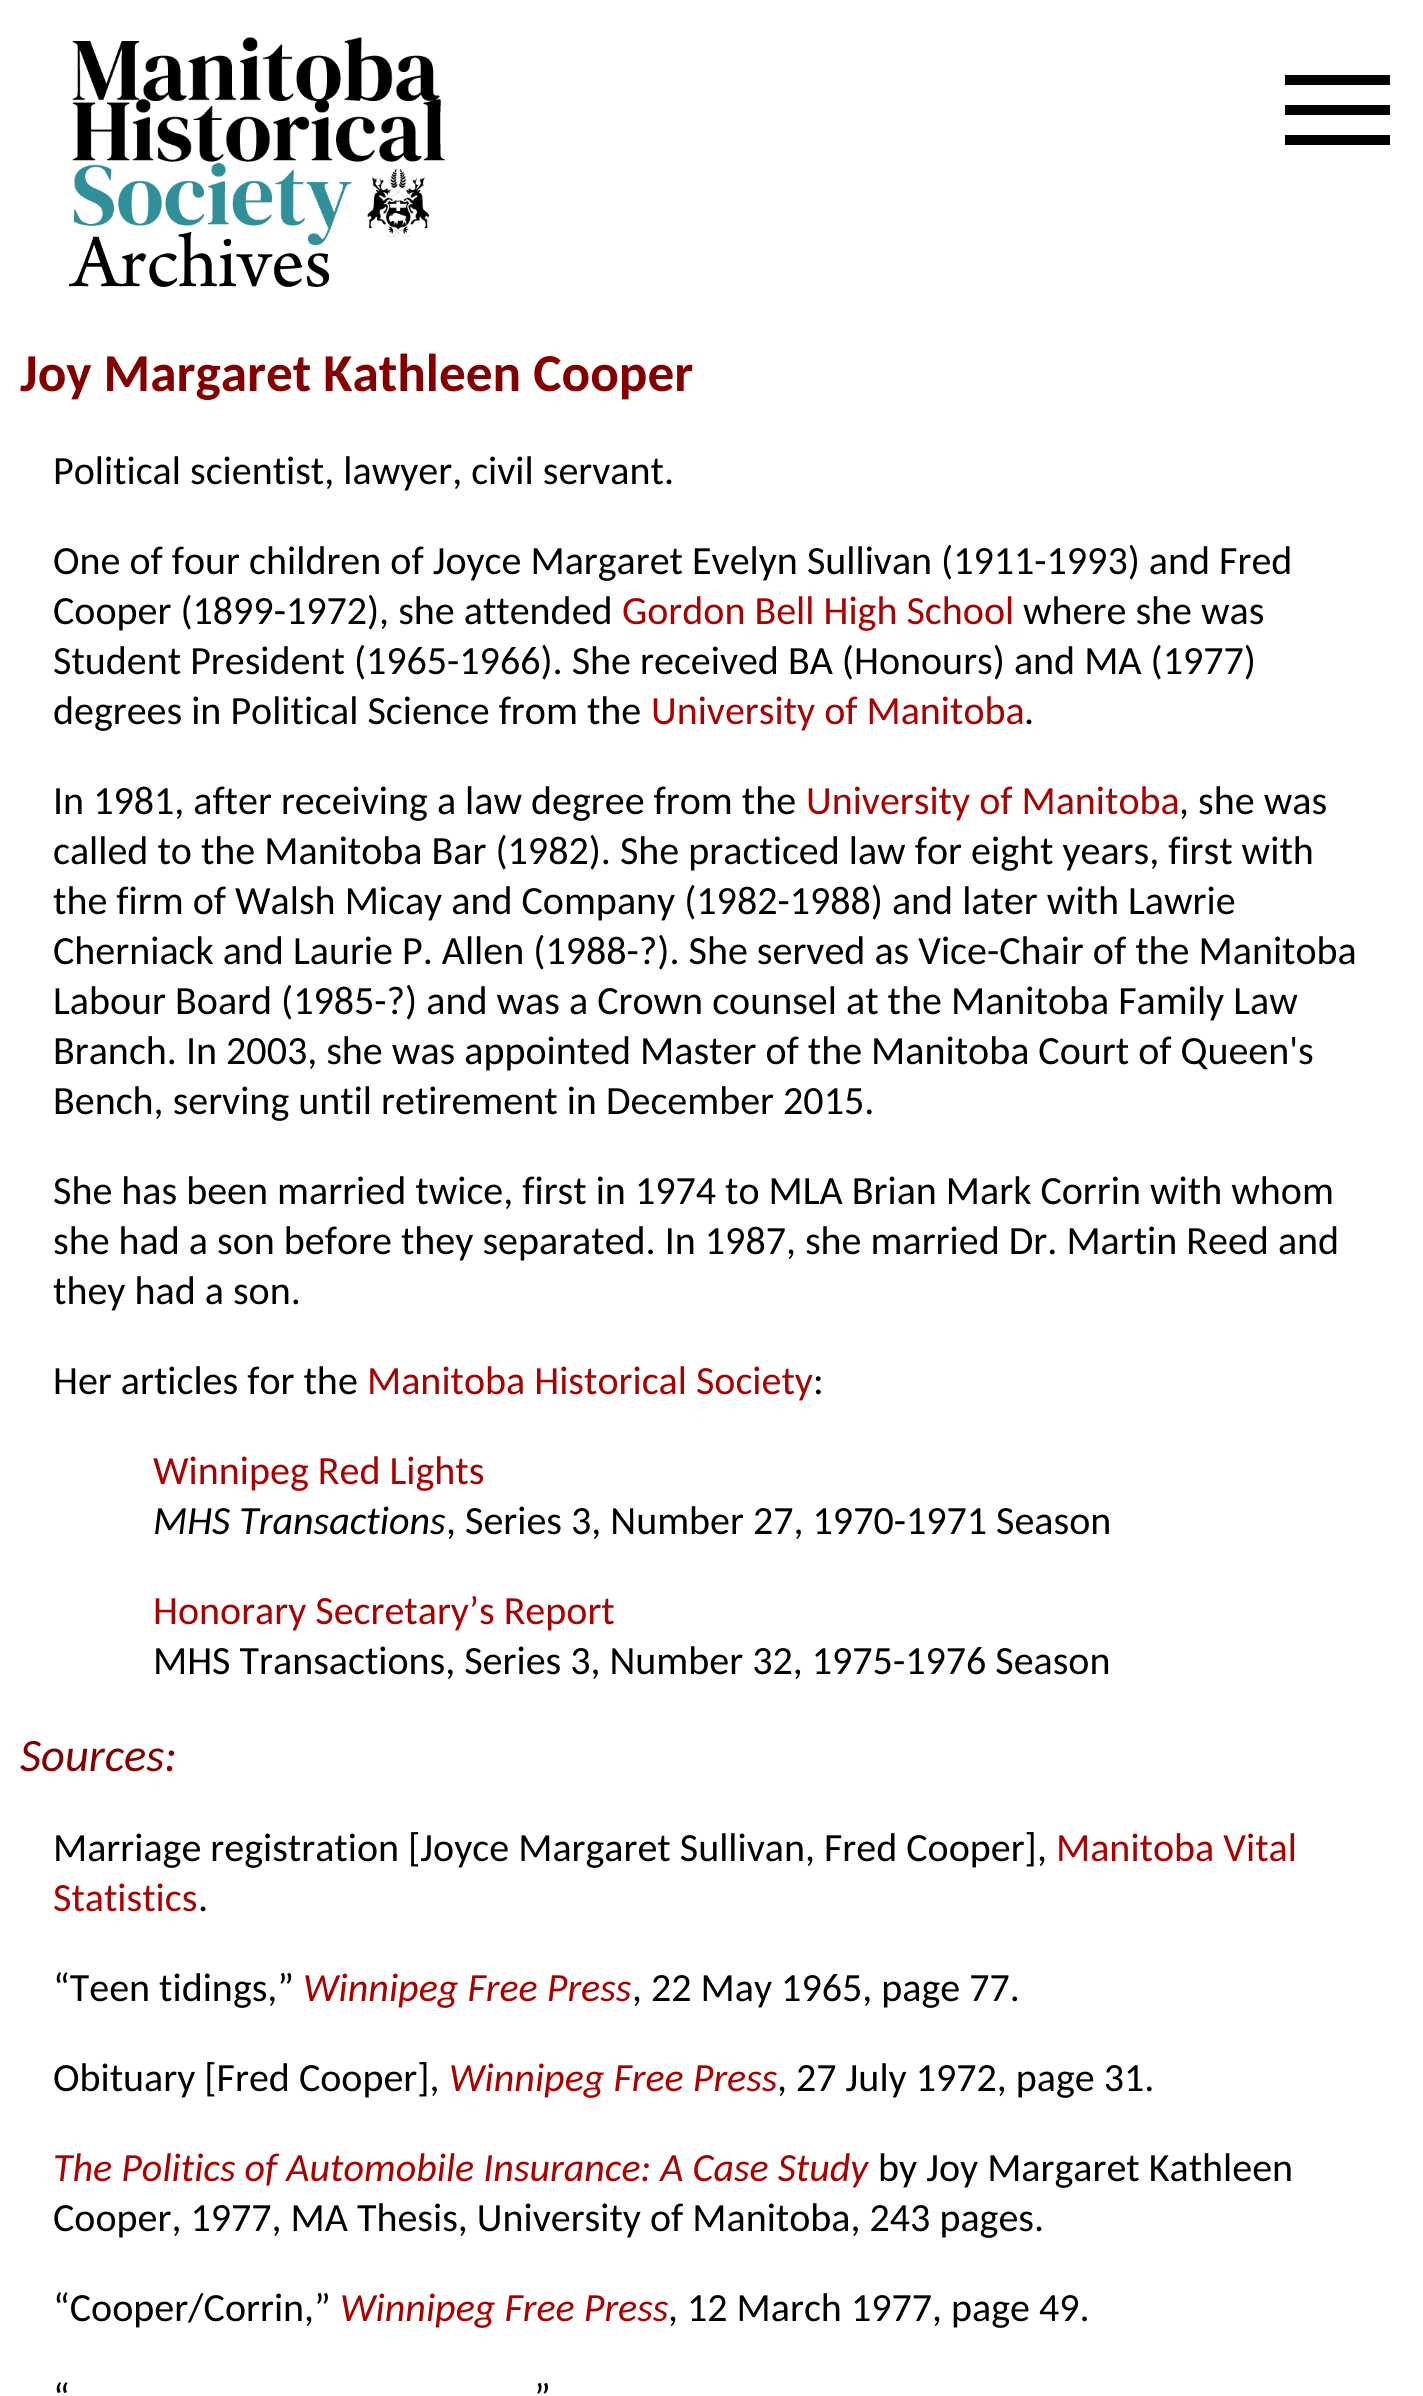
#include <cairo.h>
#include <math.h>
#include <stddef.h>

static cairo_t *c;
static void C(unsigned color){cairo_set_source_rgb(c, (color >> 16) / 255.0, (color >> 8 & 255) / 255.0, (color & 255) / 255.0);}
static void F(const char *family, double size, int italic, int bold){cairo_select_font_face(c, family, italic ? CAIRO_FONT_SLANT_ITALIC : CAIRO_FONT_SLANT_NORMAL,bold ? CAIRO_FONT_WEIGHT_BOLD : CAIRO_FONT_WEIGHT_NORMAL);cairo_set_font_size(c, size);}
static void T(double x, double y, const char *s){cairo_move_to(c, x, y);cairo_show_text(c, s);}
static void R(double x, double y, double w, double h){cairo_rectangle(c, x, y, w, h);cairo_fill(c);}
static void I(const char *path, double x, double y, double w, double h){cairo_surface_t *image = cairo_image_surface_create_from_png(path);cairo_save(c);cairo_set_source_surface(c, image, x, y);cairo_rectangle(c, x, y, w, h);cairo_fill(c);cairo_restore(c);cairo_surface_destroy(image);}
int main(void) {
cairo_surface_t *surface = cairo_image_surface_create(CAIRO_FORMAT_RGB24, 1423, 2396);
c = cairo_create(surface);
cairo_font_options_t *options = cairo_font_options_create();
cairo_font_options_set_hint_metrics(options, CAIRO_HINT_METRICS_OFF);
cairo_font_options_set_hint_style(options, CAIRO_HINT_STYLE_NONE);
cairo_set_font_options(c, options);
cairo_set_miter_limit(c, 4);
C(0xffffff);
cairo_paint(c);
C(0x000000);
R(1285,105,105,10);
R(1285,75,105,10);
R(1285,135,105,10);
I("1.png",72,37,373,208);
F("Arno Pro",80,0,0);
T(71,286,"Archives");
F("Carlito",53.3,0,1);
C(0x840000);
T(20,391,"Joy Margaret Kathleen Cooper");
F("Carlito",40,0,0);
C(0x000000);
T(53,484,"Political scientist, lawyer, civil servant.");
T(53,574,"One of four children of Joyce Margaret Evelyn Sullivan (1911-1993) and Fred");
T(53,624,"Cooper (1899-1972), she attended");
C(0xa90000);
T(622,624,"Gordon Bell High School");
C(0x000000);
T(1023,624,"where she was");
T(53,674,"Student President (1965-1966). She received BA (Honours) and MA (1977)");
T(53,724,"degrees in Political Science from the");
C(0xa90000);
T(651,724,"University of Manitoba");
C(0x000000);
T(1024,724,".");
T(53,814,"In 1981, after receiving a law degree from the");
C(0xa90000);
T(806,814,"University of Manitoba");
C(0x000000);
T(1179,814,", she was");
T(53,864,"called to the Manitoba Bar (1982). She practiced law for eight years, first with");
T(53,914,"the firm of Walsh Micay and Company (1982-1988) and later with Lawrie");
T(53,964,"Cherniack and Laurie P. Allen (1988-?). She served as Vice-Chair of the Manitoba");
T(53,1014,"Labour Board (1985-?) and was a Crown counsel at the Manitoba Family Law");
T(53,1064,"Branch. In 2003, she was appointed Master of the Manitoba Court of Queen's");
T(53,1114,"Bench, serving until retirement in December 2015.");
T(53,1204,"She has been married twice, first in 1974 to MLA Brian Mark Corrin with whom");
T(53,1254,"she had a son before they separated. In 1987, she married Dr. Martin Reed and");
T(53,1304,"they had a son.");
T(53,1394,"Her articles for the");
C(0xa90000);
T(367,1394,"Manitoba Historical Society");
C(0x000000);
T(813,1394,":");
C(0xa90000);
T(153,1484,"Winnipeg Red Lights");
F("Carlito",40,1,0);
C(0x000000);
T(153,1534,"MHS Transactions");
F("Carlito",40,0,0);
T(446,1534,", Series 3, Number 27, 1970-1971 Season");
C(0xa90000);
T(153,1624,"Honorary Secretary’s Report");
C(0x000000);
T(153,1674,"MHS Transactions, Series 3, Number 32, 1975-1976 Season");
F("Carlito",46.5,1,0);
C(0x840000);
T(20,1771,"Sources:");
F("Carlito",40,0,0);
C(0x000000);
T(53,1861,"Marriage registration [Joyce Margaret Sullivan, Fred Cooper],");
C(0xa90000);
T(1056,1861,"Manitoba Vital");
T(53,1911,"Statistics");
C(0x000000);
T(198,1911,".");
T(53,2001,"“Teen tidings,”");
F("Carlito",40,1,0);
C(0xa90000);
T(303,2001,"Winnipeg Free Press");
F("Carlito",40,0,0);
C(0x000000);
T(632,2001,", 22 May 1965, page 77.");
T(53,2091,"Obituary [Fred Cooper],");
F("Carlito",40,1,0);
C(0xa90000);
T(449,2091,"Winnipeg Free Press");
F("Carlito",40,0,0);
C(0x000000);
T(777,2091,", 27 July 1972, page 31.");
F("Carlito",40,1,0);
C(0xa90000);
T(53,2181,"The Politics of Automobile Insurance: A Case Study");
F("Carlito",40,0,0);
C(0x000000);
T(878,2181,"by Joy Margaret Kathleen");
T(53,2231,"Cooper, 1977, MA Thesis, University of Manitoba, 243 pages.");
T(53,2321,"“Cooper/Corrin,”");
F("Carlito",40,1,0);
C(0xa90000);
T(340,2321,"Winnipeg Free Press");
F("Carlito",40,0,0);
C(0x000000);
T(668,2321,", 12 March 1977, page 49.");
T(53,2411,"“");
T(534,2411,"”");
cairo_surface_write_to_png(surface, "o.png");
cairo_font_options_destroy(options);
cairo_destroy(c);
cairo_surface_destroy(surface);
return 0;
}
